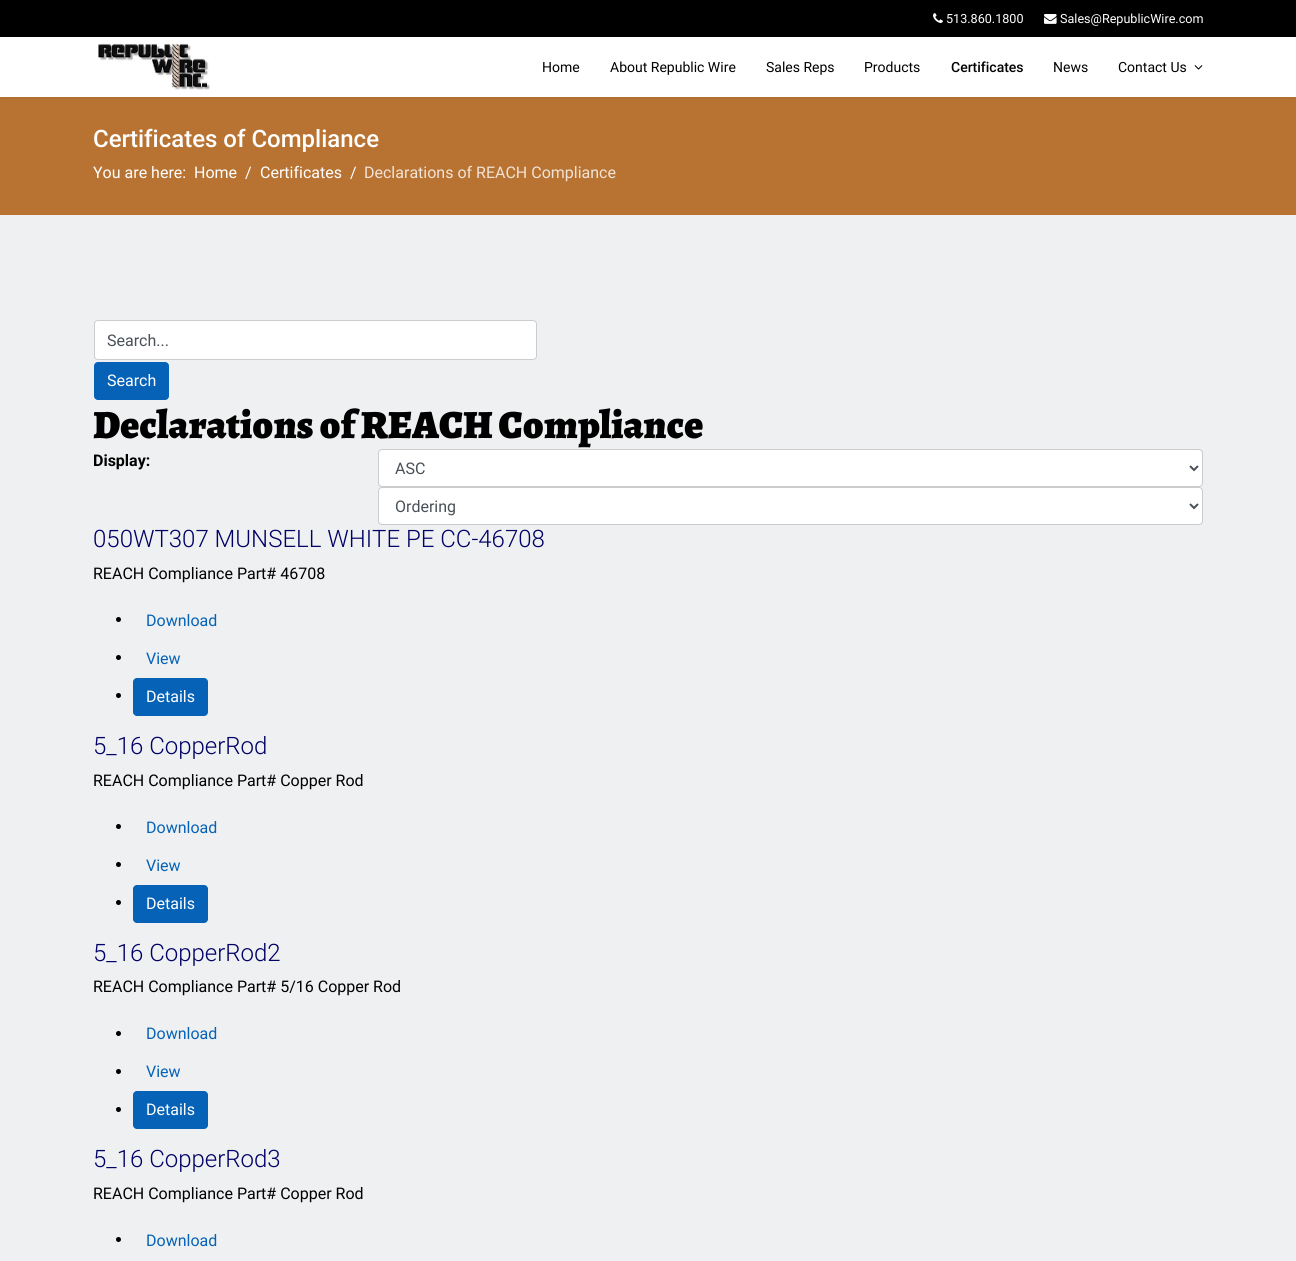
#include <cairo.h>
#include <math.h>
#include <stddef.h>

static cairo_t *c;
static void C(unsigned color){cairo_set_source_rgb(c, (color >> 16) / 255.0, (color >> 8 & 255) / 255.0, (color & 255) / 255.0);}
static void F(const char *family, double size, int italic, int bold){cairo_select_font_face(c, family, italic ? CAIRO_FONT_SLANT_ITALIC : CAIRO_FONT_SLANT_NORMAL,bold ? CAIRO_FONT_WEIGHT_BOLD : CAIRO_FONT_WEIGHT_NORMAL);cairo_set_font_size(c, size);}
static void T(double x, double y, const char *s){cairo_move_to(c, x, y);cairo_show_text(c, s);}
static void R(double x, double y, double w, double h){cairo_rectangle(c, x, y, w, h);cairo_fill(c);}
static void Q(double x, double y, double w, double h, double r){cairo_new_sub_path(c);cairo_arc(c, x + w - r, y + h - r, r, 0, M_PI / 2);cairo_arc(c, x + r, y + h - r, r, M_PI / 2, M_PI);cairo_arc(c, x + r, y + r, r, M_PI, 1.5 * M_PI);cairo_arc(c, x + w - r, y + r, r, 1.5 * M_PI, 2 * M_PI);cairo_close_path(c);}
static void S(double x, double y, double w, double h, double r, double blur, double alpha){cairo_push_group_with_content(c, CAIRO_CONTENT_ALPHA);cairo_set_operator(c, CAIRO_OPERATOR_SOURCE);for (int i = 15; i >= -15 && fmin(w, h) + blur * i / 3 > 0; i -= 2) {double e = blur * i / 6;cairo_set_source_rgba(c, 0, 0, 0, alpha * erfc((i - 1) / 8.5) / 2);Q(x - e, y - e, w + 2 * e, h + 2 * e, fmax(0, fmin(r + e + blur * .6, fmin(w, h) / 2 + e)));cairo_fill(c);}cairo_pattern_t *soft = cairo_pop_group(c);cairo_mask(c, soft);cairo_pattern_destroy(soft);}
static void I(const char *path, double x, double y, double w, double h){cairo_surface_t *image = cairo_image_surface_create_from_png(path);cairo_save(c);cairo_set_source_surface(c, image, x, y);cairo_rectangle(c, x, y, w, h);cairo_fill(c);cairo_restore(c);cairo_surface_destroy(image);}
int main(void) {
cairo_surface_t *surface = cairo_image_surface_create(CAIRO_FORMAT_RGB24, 1296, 1261);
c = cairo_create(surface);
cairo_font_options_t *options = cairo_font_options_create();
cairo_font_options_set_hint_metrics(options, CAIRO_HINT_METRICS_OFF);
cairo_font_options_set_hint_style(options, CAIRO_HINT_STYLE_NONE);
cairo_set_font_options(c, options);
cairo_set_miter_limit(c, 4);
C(0xeef0f1);
cairo_paint(c);
C(0x000000);
R(0,0,1296,37);
I("1.png",933,13,10,10);
F("Roboto",12.6,0,0);
C(0xffffff);
T(946,23,"513.860.1800");
I("2.png",1044,14,13,10);
T(1060,23,"Sales@RepublicWire.com");
C(0xb87333);
R(0,97,1296,118);
C(0x000000);
S(0,37,1296,60,0,2,.1);
C(0xffffff);
R(0,37,1296,60);
I("3.png",98,43,112,47);
F("Roboto",14,0,0);
C(0x000000);
T(542,72,"Home");
T(610,72,"About Republic Wire");
T(766,72,"Sales Reps");
T(864,72,"Products");
F("Roboto Medium",14,0,0);
T(951,72,"Certificates");
F("Roboto",14,0,0);
T(1053,72,"News");
T(1118,72,"Contact Us");
I("4.png",1194,65,9,5);
F("Roboto Medium",24,0,0);
C(0xffffff);
T(93,147,"Certificates of Compliance");
F("Roboto",16,0,0);
T(93,178,"You are here:");
T(194,178,"Home");
T(245,178,"/");
T(260,178,"Certificates");
T(350,178,"/");
C(0xf1e3d6);
T(364,178,"Declarations of REACH Compliance");
C(0xffffff);
Q(94.5,320.5,442,39,3.5);
cairo_fill_preserve(c);
C(0xcacccd);
cairo_set_line_width(c,1);
cairo_stroke(c);
C(0x495057);
T(107,346,"Search...");
C(0x0662b7);
Q(94.5,362.5,74,37,3.5);
cairo_fill_preserve(c);
cairo_stroke(c);
C(0xffffff);
T(107,386,"Search");
F("Alegreya Black",40,0,0);
C(0x000000);
T(93,438,"Declarations of REACH Compliance");
F("Roboto",16,0,1);
T(93,466,"Display:");
C(0xffffff);
Q(378.5,449.5,824,37,3.5);
cairo_fill_preserve(c);
C(0xcacccd);
cairo_stroke(c);
cairo_new_path(c);
cairo_move_to(c,1190,466);
cairo_line_to(c,1194,470);
cairo_line_to(c,1198,466);
C(0x495057);
cairo_set_line_width(c,2);
cairo_stroke(c);
F("Roboto",16,0,0);
T(395,474,"ASC");
C(0xffffff);
Q(378.5,487.5,824,37,3.5);
cairo_fill_preserve(c);
C(0xcacccd);
cairo_set_line_width(c,1);
cairo_stroke(c);
cairo_new_path(c);
cairo_move_to(c,1190,504);
cairo_line_to(c,1194,508);
cairo_line_to(c,1198,504);
C(0x495057);
cairo_set_line_width(c,2);
cairo_stroke(c);
T(395,512,"Ordering");
F("Roboto Light",24,0,0);
C(0x000066);
T(93,547,"050WT307 MUNSELL WHITE PE CC-46708");
F("Roboto",16,0,0);
C(0x000000);
T(93,579,"REACH Compliance Part# 46708");
cairo_new_path(c);
cairo_arc(c,118.5,619.5,2.5,0,2 * M_PI);
cairo_fill(c);
C(0x0662b7);
T(146,626,"Download");
C(0x000000);
cairo_new_path(c);
cairo_arc(c,118.5,657.5,2.5,0,2 * M_PI);
cairo_fill(c);
C(0x0662b7);
T(146,664,"View");
C(0x000000);
cairo_new_path(c);
cairo_arc(c,118.5,695.5,2.5,0,2 * M_PI);
cairo_fill(c);
C(0x0662b7);
Q(133.5,678.5,74,37,3.5);
cairo_fill_preserve(c);
cairo_set_line_width(c,1);
cairo_stroke(c);
C(0xffffff);
T(146,702,"Details");
F("Roboto Light",24,0,0);
C(0x000066);
T(93,754,"5_16 CopperRod");
F("Roboto",16,0,0);
C(0x000000);
T(93,786,"REACH Compliance Part# Copper Rod");
cairo_new_path(c);
cairo_arc(c,118.5,826.5,2.5,0,2 * M_PI);
cairo_fill(c);
C(0x0662b7);
T(146,833,"Download");
C(0x000000);
cairo_new_path(c);
cairo_arc(c,118.5,864.5,2.5,0,2 * M_PI);
cairo_fill(c);
C(0x0662b7);
T(146,871,"View");
C(0x000000);
cairo_new_path(c);
cairo_arc(c,118.5,902.5,2.5,0,2 * M_PI);
cairo_fill(c);
C(0x0662b7);
Q(133.5,885.5,74,37,3.5);
cairo_fill_preserve(c);
cairo_stroke(c);
C(0xffffff);
T(146,909,"Details");
F("Roboto Light",24,0,0);
C(0x000066);
T(93,961,"5_16 CopperRod2");
F("Roboto",16,0,0);
C(0x000000);
T(93,992,"REACH Compliance Part# 5/16 Copper Rod");
cairo_new_path(c);
cairo_arc(c,118.5,1033.5,2.5,0,2 * M_PI);
cairo_fill(c);
C(0x0662b7);
T(146,1039,"Download");
C(0x000000);
cairo_new_path(c);
cairo_arc(c,118.5,1071.5,2.5,0,2 * M_PI);
cairo_fill(c);
C(0x0662b7);
T(146,1077,"View");
C(0x000000);
cairo_new_path(c);
cairo_arc(c,118.5,1109.5,2.5,0,2 * M_PI);
cairo_fill(c);
C(0x0662b7);
Q(133.5,1091.5,74,37,3.5);
cairo_fill_preserve(c);
cairo_stroke(c);
C(0xffffff);
T(146,1115,"Details");
F("Roboto Light",24,0,0);
C(0x000066);
T(93,1167,"5_16 CopperRod3");
F("Roboto",16,0,0);
C(0x000000);
T(93,1199,"REACH Compliance Part# Copper Rod");
cairo_new_path(c);
cairo_arc(c,118.5,1239.5,2.5,0,2 * M_PI);
cairo_fill(c);
C(0x0662b7);
T(146,1246,"Download");
cairo_surface_write_to_png(surface, "o.png");
cairo_font_options_destroy(options);
cairo_destroy(c);
cairo_surface_destroy(surface);
return 0;
}
